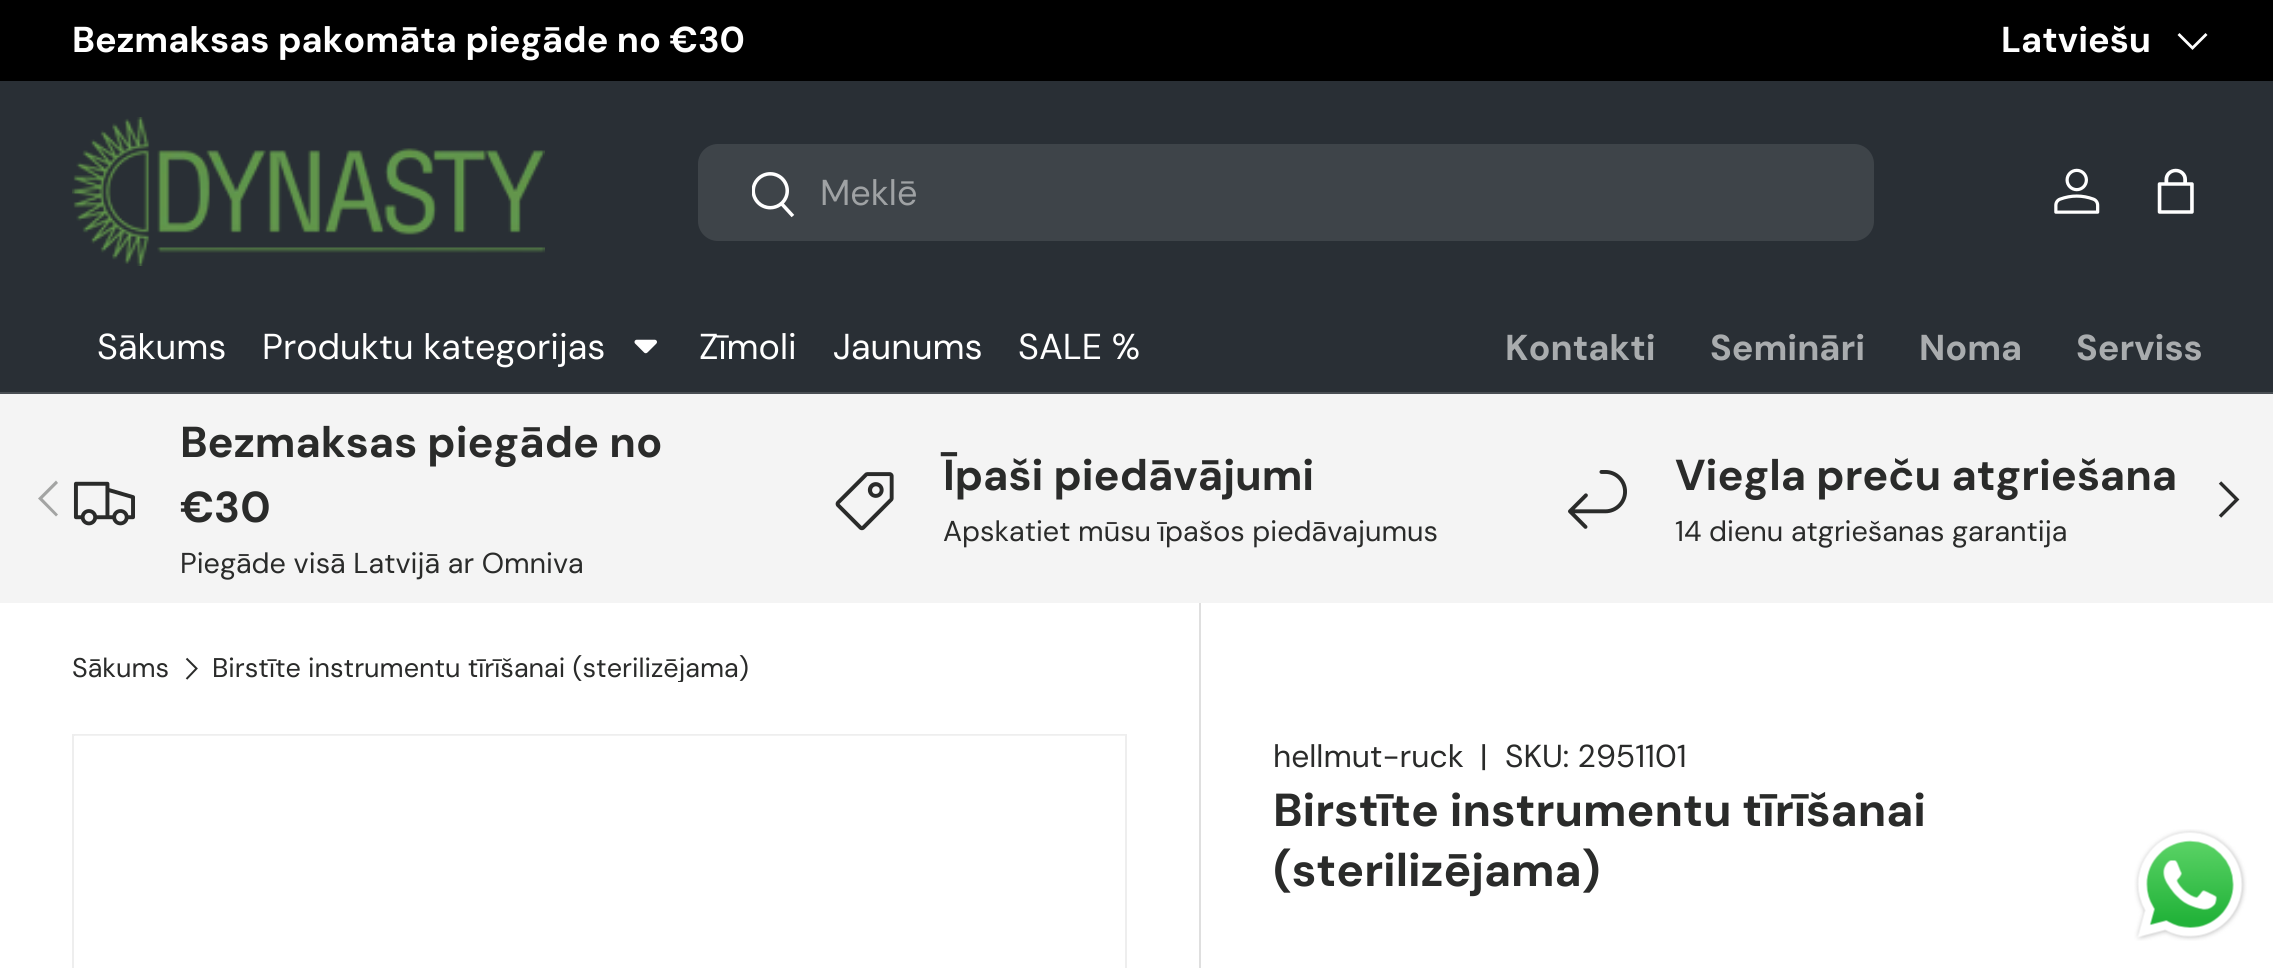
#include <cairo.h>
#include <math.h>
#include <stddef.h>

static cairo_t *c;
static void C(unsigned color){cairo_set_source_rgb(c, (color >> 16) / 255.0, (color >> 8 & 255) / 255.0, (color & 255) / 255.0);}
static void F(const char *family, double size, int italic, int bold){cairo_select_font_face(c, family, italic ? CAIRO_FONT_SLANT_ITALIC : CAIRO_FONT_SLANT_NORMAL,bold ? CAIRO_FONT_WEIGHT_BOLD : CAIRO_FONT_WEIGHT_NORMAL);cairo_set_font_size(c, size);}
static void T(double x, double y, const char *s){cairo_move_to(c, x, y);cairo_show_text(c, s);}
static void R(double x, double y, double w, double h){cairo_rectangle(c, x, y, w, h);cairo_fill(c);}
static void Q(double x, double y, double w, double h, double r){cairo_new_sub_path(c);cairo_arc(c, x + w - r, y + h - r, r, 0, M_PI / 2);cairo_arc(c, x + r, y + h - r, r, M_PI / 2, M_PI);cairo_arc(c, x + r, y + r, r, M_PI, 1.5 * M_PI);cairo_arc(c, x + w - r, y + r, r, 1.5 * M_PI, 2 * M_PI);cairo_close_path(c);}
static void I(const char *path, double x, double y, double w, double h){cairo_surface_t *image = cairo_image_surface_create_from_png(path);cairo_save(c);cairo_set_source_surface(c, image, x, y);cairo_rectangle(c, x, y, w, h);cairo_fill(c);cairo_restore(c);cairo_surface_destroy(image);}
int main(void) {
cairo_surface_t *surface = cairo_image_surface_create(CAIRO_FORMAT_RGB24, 2273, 968);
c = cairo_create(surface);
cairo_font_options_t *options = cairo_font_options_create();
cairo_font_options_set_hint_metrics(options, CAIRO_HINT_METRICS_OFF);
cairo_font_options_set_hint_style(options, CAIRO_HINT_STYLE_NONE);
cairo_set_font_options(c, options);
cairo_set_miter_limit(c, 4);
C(0xffffff);
cairo_paint(c);
C(0x000000);
R(0,0,2273,81);
F("DM Sans",36,0,1);
C(0xffffff);
T(72,52,"Bezmaksas pakomāta piegāde no €30");
T(2001,52,"Latviešu");
cairo_new_path(c);
cairo_move_to(c,2206.5,34);
cairo_line_to(c,2192.5,48);
cairo_line_to(c,2178.5,34);
cairo_set_line_width(c,2.8);
cairo_stroke(c);
C(0x292f35);
R(0,81,2273,311);
C(0x494e53);
R(0,392,2273,2);
I("1.png",72,117,473,149);
C(0x3e4449);
Q(698,144,1176,97,20);
cairo_fill(c);
I("2.png",752,172,43,46);
F("DM Sans",36,0,0);
C(0x9fa2a4);
T(820,205,"Meklē");
I("3.png",2054,168,46,46);
I("4.png",2157,168,37,46);
C(0xffffff);
T(97,359,"Sākums");
T(262,359,"Produktu kategorijas");
I("5.png",634,339,23,15);
T(699,359,"Zīmoli");
T(833,359,"Jaunums");
T(1018,359,"SALE %");
F("DM Sans",36,0,1);
C(0xa9acae);
T(1505,360,"Kontakti");
T(1710,360,"Semināri");
T(1919,360,"Noma");
T(2076,360,"Serviss");
C(0xf4f4f4);
R(0,394,2273,209);
I("6.png",73,481,62,45);
F("DM Sans",43.25,0,1);
C(0x2a2b2a);
T(180,457,"Bezmaksas piegāde no");
T(180,522,"€30");
F("DM Sans",28.75,0,0);
T(180,573,"Piegāde visā Latvijā ar Omniva");
I("7.png",835,472,59,59);
F("DM Sans",43.25,0,1);
T(943,490,"Īpaši piedāvājumi");
F("DM Sans",28.75,0,0);
T(943,541,"Apskatiet mūsu īpašos piedāvajumus");
I("8.png",1568,470,59,59);
F("DM Sans",43.25,0,1);
T(1675,490,"Viegla preču atgriešana");
F("DM Sans",28.75,0,0);
T(1675,541,"14 dienu atgriešanas garantija");
C(0xa3a4a3);
cairo_new_path(c);
cairo_move_to(c,38,498.5);
cairo_line_to(c,56,480.5);
cairo_line_to(c,58,483);
cairo_line_to(c,42.5,498.5);
cairo_line_to(c,58,514.5);
cairo_line_to(c,56,516.5);
cairo_close_path(c);
cairo_fill(c);
cairo_new_path(c);
cairo_move_to(c,2220,482.5);
cairo_line_to(c,2237,499.5);
cairo_line_to(c,2220,516.5);
C(0x2a2b2a);
cairo_set_line_width(c,3.4);
cairo_stroke(c);
F("DM Sans",27,0,0);
T(72,677,"Sākums");
cairo_new_path(c);
cairo_move_to(c,186.5,658.5);
cairo_line_to(c,196.5,668.5);
cairo_line_to(c,186.5,679);
cairo_set_line_width(c,2);
cairo_stroke(c);
cairo_save(c);
cairo_rectangle(c,212,655,537,27);
cairo_clip(c);
T(212,677,"Birstīte instrumentu tīrīšanai (sterilizējama)");
cairo_restore(c);
cairo_rectangle(c,73,735,1053,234);
C(0xeeeeee);
cairo_stroke(c);
C(0xf2f2f2);
R(75,735,1050,1);
C(0xdfdfdf);
R(1199,603,2,365);
F("DM Sans",31.75,0,0);
C(0x2a2b2a);
T(1273,767,"hellmut-ruck");
T(1480,767,"|");
T(1505,767,"SKU: 2951101");
F("DM Sans",46.25,0,1);
T(1273,826,"Birstīte instrumentu tīrīšanai");
T(1273,886,"(sterilizējama)");
I("9.png",2134,829,113,112);
cairo_surface_write_to_png(surface, "o.png");
cairo_font_options_destroy(options);
cairo_destroy(c);
cairo_surface_destroy(surface);
return 0;
}
